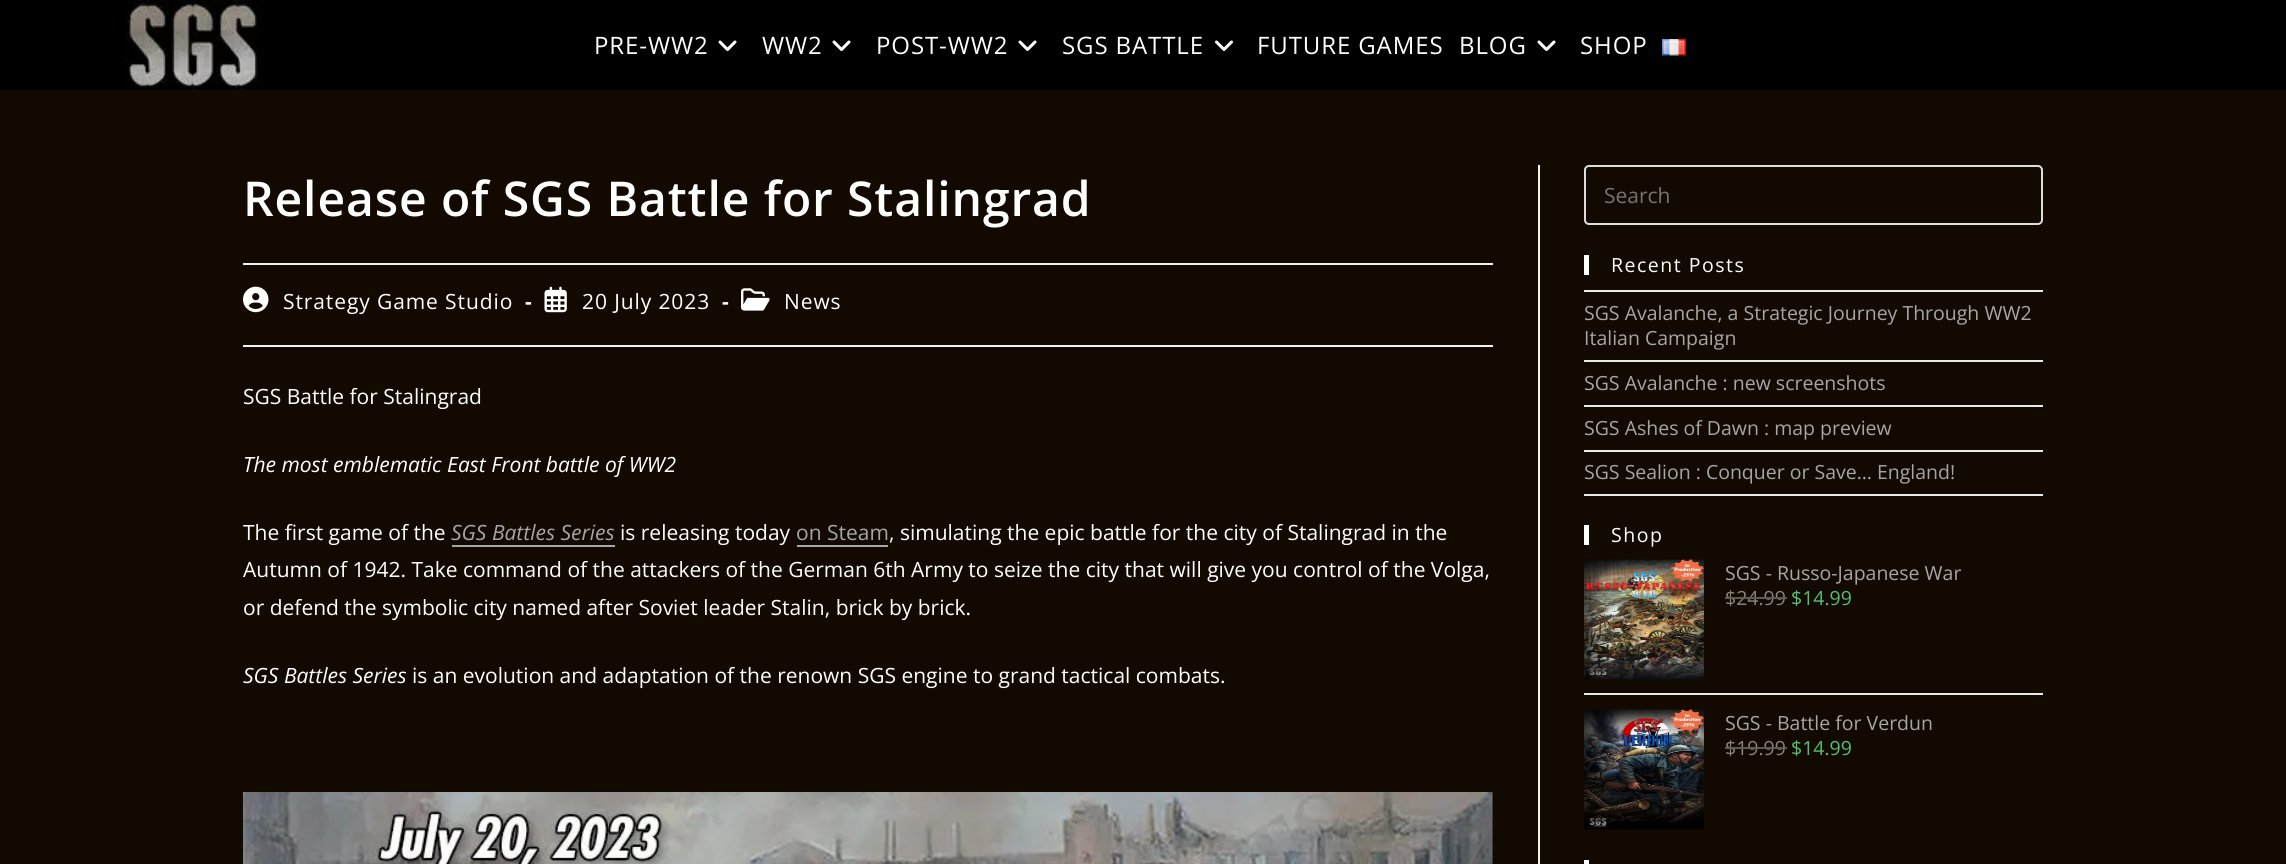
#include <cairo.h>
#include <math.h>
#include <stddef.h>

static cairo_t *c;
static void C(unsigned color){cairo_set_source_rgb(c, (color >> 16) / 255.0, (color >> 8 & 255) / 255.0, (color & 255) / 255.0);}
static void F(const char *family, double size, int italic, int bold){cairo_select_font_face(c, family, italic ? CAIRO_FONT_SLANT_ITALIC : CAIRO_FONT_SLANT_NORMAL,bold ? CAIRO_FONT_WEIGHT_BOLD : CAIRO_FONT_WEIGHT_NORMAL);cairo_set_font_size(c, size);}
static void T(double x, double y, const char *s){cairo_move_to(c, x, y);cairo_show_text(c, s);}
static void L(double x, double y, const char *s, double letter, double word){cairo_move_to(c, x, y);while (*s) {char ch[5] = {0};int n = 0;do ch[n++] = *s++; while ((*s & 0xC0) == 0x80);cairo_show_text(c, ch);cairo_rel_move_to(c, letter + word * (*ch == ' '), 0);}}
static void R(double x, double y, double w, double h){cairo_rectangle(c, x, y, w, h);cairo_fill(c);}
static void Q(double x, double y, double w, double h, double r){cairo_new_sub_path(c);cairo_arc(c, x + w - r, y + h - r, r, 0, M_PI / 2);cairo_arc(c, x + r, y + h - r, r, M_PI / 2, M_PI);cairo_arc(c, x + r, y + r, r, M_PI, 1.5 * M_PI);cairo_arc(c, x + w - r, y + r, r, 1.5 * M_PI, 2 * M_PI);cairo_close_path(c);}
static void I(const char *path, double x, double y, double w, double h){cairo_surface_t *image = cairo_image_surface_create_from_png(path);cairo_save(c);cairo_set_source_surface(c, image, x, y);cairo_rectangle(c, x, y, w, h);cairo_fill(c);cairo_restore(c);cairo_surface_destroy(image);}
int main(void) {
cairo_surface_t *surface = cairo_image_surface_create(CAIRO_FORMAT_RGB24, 2286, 864);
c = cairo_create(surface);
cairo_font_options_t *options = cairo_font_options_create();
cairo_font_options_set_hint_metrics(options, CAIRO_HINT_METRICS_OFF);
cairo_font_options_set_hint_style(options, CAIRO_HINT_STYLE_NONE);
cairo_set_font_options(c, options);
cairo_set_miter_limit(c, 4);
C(0x120900);
cairo_paint(c);
C(0x000000);
R(0,0,2286,90);
I("1.png",124,0,140,90);
F("Open Sans",24,0,0);
C(0xffffff);
L(594,54,"PRE-WW2",.9,0);
I("2.png",718,40,19,11);
L(762,54,"WW2",.9,0);
I("2.png",832,40,19,11);
L(876,54,"POST-WW2",.9,0);
I("2.png",1018,40,19,11);
L(1062,54,"SGS BATTLE",.9,0);
I("3.png",1215,40,18,11);
L(1257,54,"FUTURE GAMES",.9,0);
L(1459,54,"BLOG",.9,0);
I("2.png",1537,40,19,11);
L(1580,54,"SHOP",.9,0);
I("4.png",1662,39,24,17);
C(0xf1f1f1);
R(1538,165,2,699);
R(243,263,1250,2);
F("Open Sans SemiBold",48,0,0);
C(0xffffff);
L(243,216,"Release of SGS Battle for Stalingrad",.9,0);
C(0xf1f1f1);
R(243,345,1250,2);
I("5.png",243,286,26,27);
F("Open Sans",21,0,0);
C(0xffffff);
L(283,309,"Strategy Game Studio",.9,0);
F("Open Sans",21,0,1);
L(525,309,"-",.9,0);
I("6.png",544,286,23,27);
F("Open Sans",21,0,0);
L(582,309,"20 July 2023",.9,0);
F("Open Sans",21,0,1);
L(722,309,"-",.9,0);
I("7.png",741,288,29,23);
F("Open Sans",21,0,0);
L(784,309,"News",.9,0);
T(243,404,"SGS Battle for Stalingrad");
F("Open Sans",21,1,0);
T(243,472,"The most emblematic East Front battle of WW2");
F("Open Sans",21,0,0);
T(243,540,"The first game of the");
F("Open Sans",21,1,0);
C(0xa6a6a6);
T(451,540,"SGS Battles Series");
R(452,545,163,2);
F("Open Sans",21,0,0);
C(0xffffff);
T(620,540,"is releasing today");
C(0xa6a6a6);
T(796,540,"on Steam");
R(797,545,91,2);
C(0xffffff);
T(889,540,", simulating the epic battle for the city of Stalingrad in the");
T(243,577,"Autumn of 1942. Take command of the attackers of the German 6th Army to seize the city that will give you control of the Volga,");
T(243,615,"or defend the symbolic city named after Soviet leader Stalin, brick by brick.");
F("Open Sans",21,1,0);
T(243,683,"SGS Battles Series");
F("Open Sans",21,0,0);
T(412,683,"is an evolution and adaptation of the renown SGS engine to grand tactical combats.");
I("8.png",243,792,1250,72);
Q(1585,166,457,58,4);
C(0xdddddd);
cairo_stroke(c);
C(0x757575);
T(1604,203,"Search");
C(0xffffff);
R(1584,255,5,20);
F("Open Sans",19.5,0,0);
L(1611,272,"Recent Posts",1.5,0);
C(0xe9e9e9);
R(1584,290,459,2);
R(1584,360,459,2);
C(0xa6a6a6);
T(1584,320,"SGS Avalanche, a Strategic Journey Through WW2");
T(1584,345,"Italian Campaign");
C(0xe9e9e9);
R(1584,405,459,2);
C(0xa6a6a6);
T(1584,390,"SGS Avalanche : new screenshots");
C(0xe9e9e9);
R(1584,450,459,2);
C(0xa6a6a6);
T(1584,435,"SGS Ashes of Dawn : map preview");
C(0xe9e9e9);
R(1584,494,459,2);
C(0xa6a6a6);
T(1584,479,"SGS Sealion : Conquer or Save… England!");
C(0xffffff);
R(1584,525,5,20);
L(1611,542,"Shop",1.5,0);
C(0xeaeaea);
R(1584,693,459,2);
I("9.png",1584,559,120,121);
C(0xa6a6a6);
T(1725,580,"SGS - Russo-Japanese War");
C(0x898480);
T(1725,605,"$24.99");
C(0x5e5a55);
R(1725,597,62,2);
C(0x57bf6d);
T(1791,605,"$14.99");
I("10.png",1584,709,120,121);
C(0xa6a6a6);
T(1725,730,"SGS - Battle for Verdun");
C(0x898480);
T(1725,755,"$19.99");
C(0x5e5a55);
R(1725,747,62,2);
C(0x57bf6d);
T(1791,755,"$14.99");
C(0xffffff);
R(1584,860,5,4);
cairo_surface_write_to_png(surface, "o.png");
cairo_font_options_destroy(options);
cairo_destroy(c);
cairo_surface_destroy(surface);
return 0;
}
